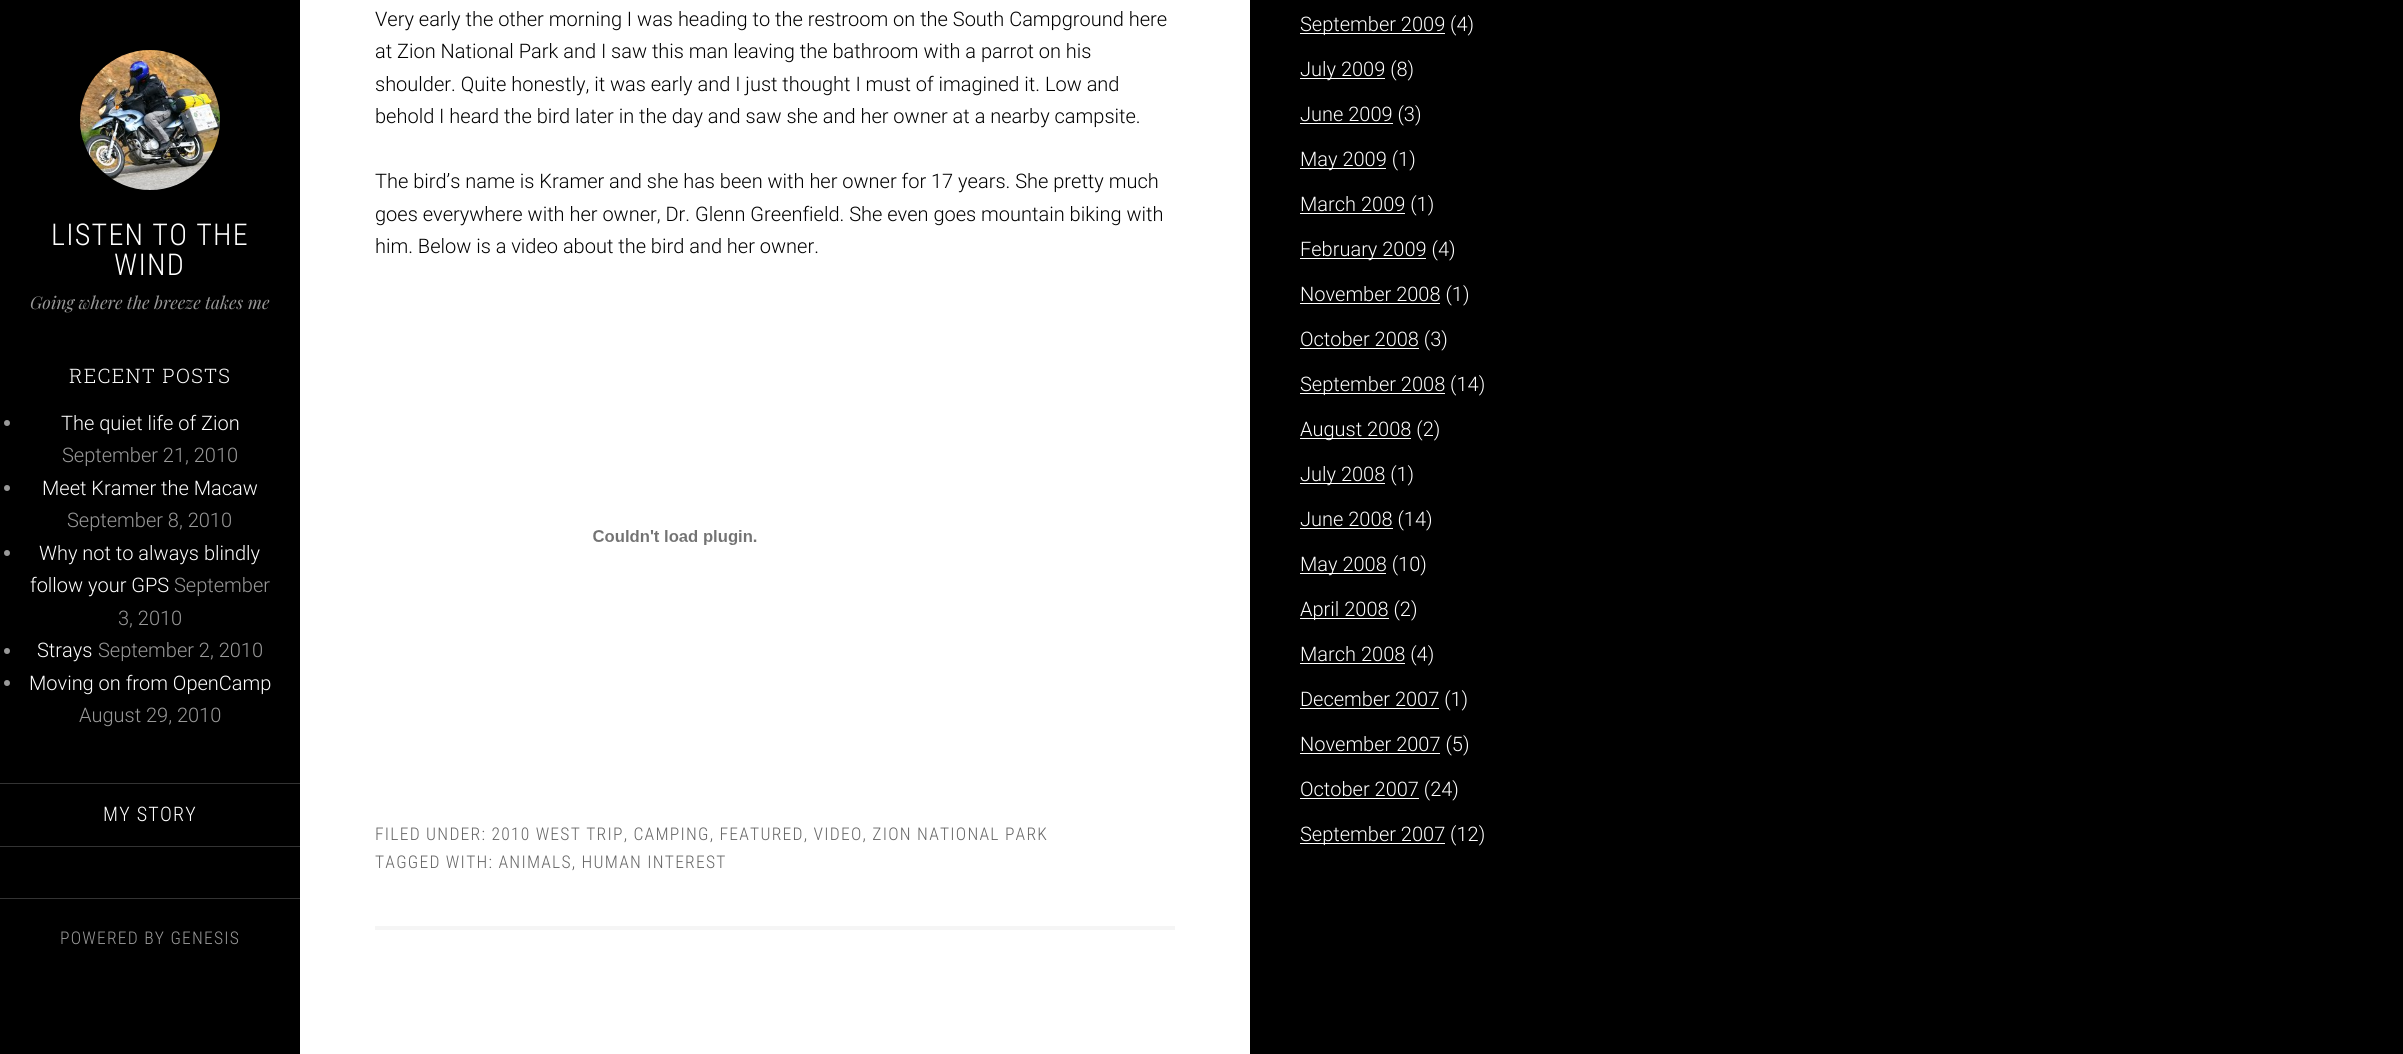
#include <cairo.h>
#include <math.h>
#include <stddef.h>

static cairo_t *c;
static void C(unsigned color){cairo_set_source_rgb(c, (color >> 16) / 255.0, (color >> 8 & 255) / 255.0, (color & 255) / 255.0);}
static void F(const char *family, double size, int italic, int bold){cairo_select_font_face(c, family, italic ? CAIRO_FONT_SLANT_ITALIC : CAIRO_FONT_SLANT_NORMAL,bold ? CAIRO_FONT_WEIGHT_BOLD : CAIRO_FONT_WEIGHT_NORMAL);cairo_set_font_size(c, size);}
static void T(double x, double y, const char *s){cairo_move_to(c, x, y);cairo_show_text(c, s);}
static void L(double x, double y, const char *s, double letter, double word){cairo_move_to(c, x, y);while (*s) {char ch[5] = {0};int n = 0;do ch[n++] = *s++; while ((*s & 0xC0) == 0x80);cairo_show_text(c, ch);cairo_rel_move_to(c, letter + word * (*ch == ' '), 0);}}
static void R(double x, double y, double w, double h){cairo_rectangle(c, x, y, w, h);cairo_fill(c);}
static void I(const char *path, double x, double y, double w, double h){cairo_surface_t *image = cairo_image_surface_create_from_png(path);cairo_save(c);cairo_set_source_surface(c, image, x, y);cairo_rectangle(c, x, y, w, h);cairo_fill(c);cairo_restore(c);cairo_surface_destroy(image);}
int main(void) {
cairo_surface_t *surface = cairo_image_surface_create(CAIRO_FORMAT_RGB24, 2403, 1054);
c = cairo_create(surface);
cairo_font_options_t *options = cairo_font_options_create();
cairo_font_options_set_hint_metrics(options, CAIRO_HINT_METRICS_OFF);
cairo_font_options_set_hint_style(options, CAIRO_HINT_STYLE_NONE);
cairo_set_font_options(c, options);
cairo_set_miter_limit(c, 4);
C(0x000000);
cairo_paint(c);
I("1.png",80,50,140,140);
F("Roboto Condensed Light",30,0,0);
C(0xffffff);
L(51,245,"LISTEN TO THE",1.25,0);
L(114,275,"WIND",1.25,0);
F("Playfair Display",17.5,1,0);
C(0x999999);
T(30,309,"Going where the breeze takes me");
F("Roboto Slab Light",20,0,0);
C(0xffffff);
L(69,383,"RECENT POSTS",1.25,0);
C(0x999999);
cairo_new_path(c);
cairo_arc(c,7,423,3,0,2 * M_PI);
cairo_fill(c);
F("Roboto Light",20,0,0);
C(0xffffff);
T(61,430,"The quiet life of Zion");
C(0x999999);
T(62,462,"September 21, 2010");
cairo_new_path(c);
cairo_arc(c,7,488,3,0,2 * M_PI);
cairo_fill(c);
C(0xffffff);
T(42,495,"Meet Kramer the Macaw");
C(0x999999);
T(67,527,"September 8, 2010");
cairo_new_path(c);
cairo_arc(c,7,553,3,0,2 * M_PI);
cairo_fill(c);
C(0xffffff);
T(39,560,"Why not to always blindly");
T(30,592,"follow your GPS");
C(0x999999);
T(174,592,"September");
T(118,625,"3, 2010");
cairo_new_path(c);
cairo_arc(c,7,651,3,0,2 * M_PI);
cairo_fill(c);
C(0xffffff);
T(37,657,"Strays");
C(0x999999);
T(98,657,"September 2, 2010");
cairo_new_path(c);
cairo_arc(c,7,683,3,0,2 * M_PI);
cairo_fill(c);
C(0xffffff);
T(29,690,"Moving on from OpenCamp");
C(0x999999);
T(79,722,"August 29, 2010");
C(0x333333);
R(0,783,300,1);
R(0,846,300,1);
F("Roboto Condensed Light",20,0,0);
C(0xffffff);
L(103,821,"MY STORY",1.25,0);
C(0x333333);
R(0,898,300,1);
F("Roboto Condensed Light",17.5,0,0);
C(0x999999);
L(60,944,"POWERED BY GENESIS",1.25,0);
C(0xffffff);
R(300,0,950,1054);
C(0xf5f5f5);
R(375,926,800,4);
F("Roboto Light",20,0,0);
C(0x000000);
T(375,26,"Very early the other morning I was heading to the restroom on the South Campground here");
T(375,58,"at Zion National Park and I saw this man leaving the bathroom with a parrot on his");
T(375,91,"shoulder. Quite honestly, it was early and I just thought I must of imagined it. Low and");
T(375,123,"behold I heard the bird later in the day and saw she and her owner at a nearby campsite.");
T(375,188,"The bird’s name is Kramer and she has been with her owner for 17 years. She pretty much");
T(375,221,"goes everywhere with her owner, Dr. Glenn Greenfield. She even goes mountain biking with");
T(375,253,"him. Below is a video about the bird and her owner.");
I("2.png",593,530,164,15);
F("Roboto Condensed Light",17.5,0,0);
C(0x666666);
L(375,840,"FILED UNDER: 2010 WEST TRIP, CAMPING, FEATURED, VIDEO, ZION NATIONAL PARK",1.25,0);
L(375,868,"TAGGED WITH: ANIMALS, HUMAN INTEREST",1.25,0);
C(0xffffff);
R(1300,33,145,1);
F("Roboto Light",20,0,0);
T(1300,31,"September 2009 (4)");
R(1300,78,85,1);
T(1300,76,"July 2009 (8)");
R(1300,123,93,1);
T(1300,121,"June 2009 (3)");
R(1300,168,86,1);
T(1300,166,"May 2009 (1)");
R(1300,213,105,1);
T(1300,211,"March 2009 (1)");
R(1300,258,126,1);
T(1300,256,"February 2009 (4)");
R(1300,303,140,1);
T(1300,301,"November 2008 (1)");
R(1300,348,119,1);
T(1300,346,"October 2008 (3)");
R(1300,393,145,1);
T(1300,391,"September 2008 (14)");
R(1300,438,111,1);
T(1300,436,"August 2008 (2)");
R(1300,483,85,1);
T(1300,481,"July 2008 (1)");
R(1300,528,93,1);
T(1300,526,"June 2008 (14)");
R(1300,573,86,1);
T(1300,571,"May 2008 (10)");
R(1300,618,89,1);
T(1300,616,"April 2008 (2)");
R(1300,663,105,1);
T(1300,661,"March 2008 (4)");
R(1300,708,139,1);
T(1300,706,"December 2007 (1)");
R(1300,753,140,1);
T(1300,751,"November 2007 (5)");
R(1300,798,119,1);
T(1300,796,"October 2007 (24)");
R(1300,843,145,1);
T(1300,841,"September 2007 (12)");
cairo_surface_write_to_png(surface, "o.png");
cairo_font_options_destroy(options);
cairo_destroy(c);
cairo_surface_destroy(surface);
return 0;
}
